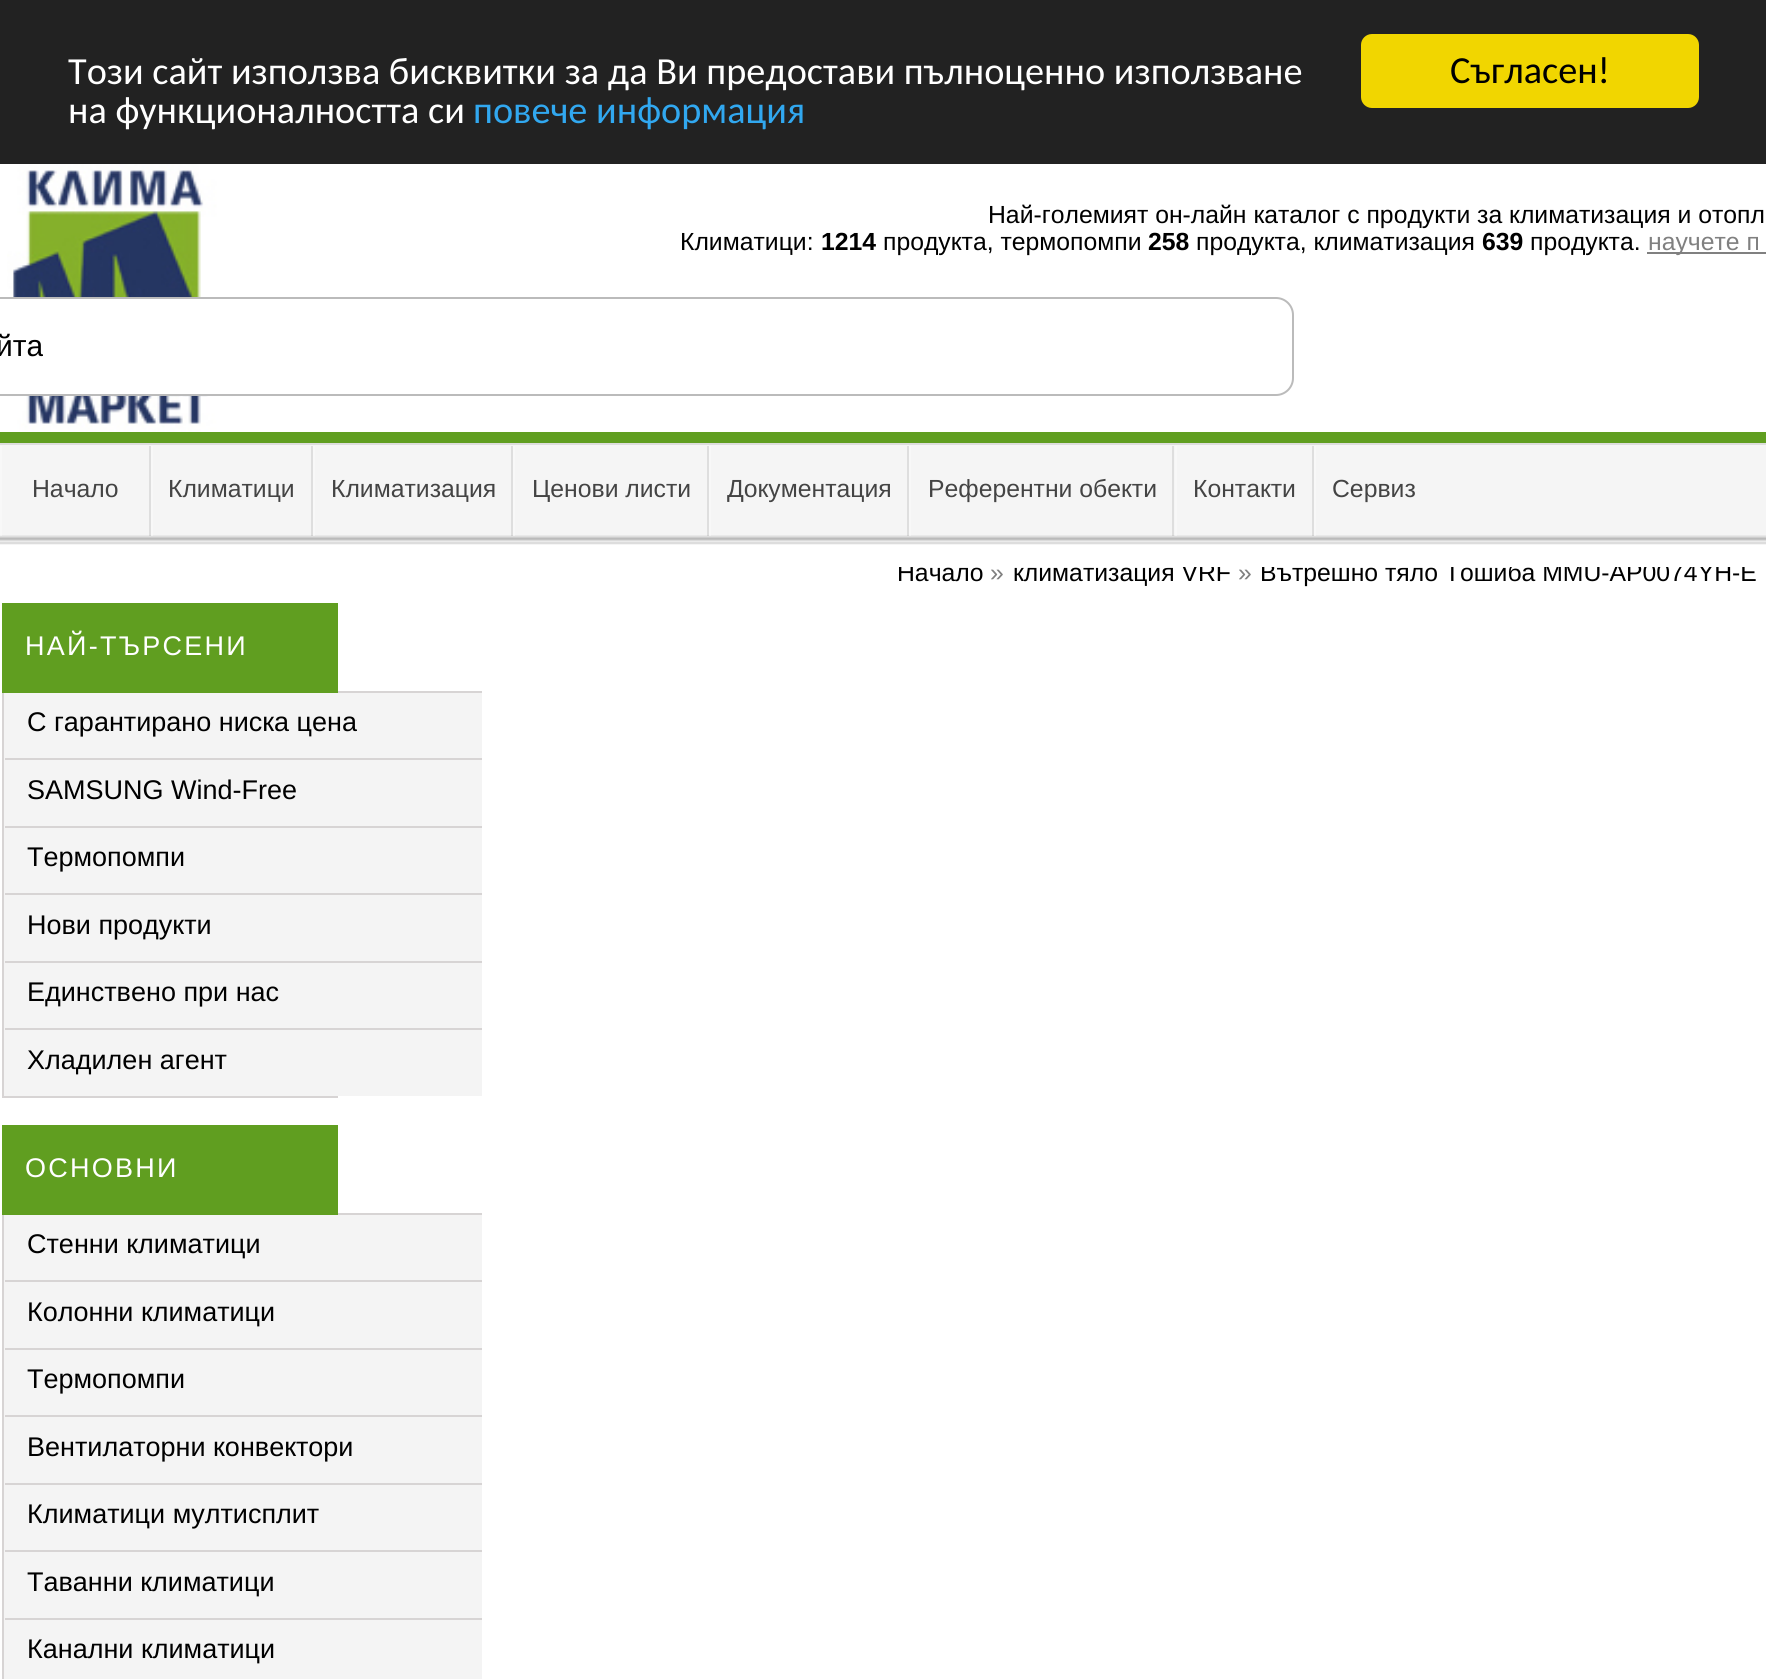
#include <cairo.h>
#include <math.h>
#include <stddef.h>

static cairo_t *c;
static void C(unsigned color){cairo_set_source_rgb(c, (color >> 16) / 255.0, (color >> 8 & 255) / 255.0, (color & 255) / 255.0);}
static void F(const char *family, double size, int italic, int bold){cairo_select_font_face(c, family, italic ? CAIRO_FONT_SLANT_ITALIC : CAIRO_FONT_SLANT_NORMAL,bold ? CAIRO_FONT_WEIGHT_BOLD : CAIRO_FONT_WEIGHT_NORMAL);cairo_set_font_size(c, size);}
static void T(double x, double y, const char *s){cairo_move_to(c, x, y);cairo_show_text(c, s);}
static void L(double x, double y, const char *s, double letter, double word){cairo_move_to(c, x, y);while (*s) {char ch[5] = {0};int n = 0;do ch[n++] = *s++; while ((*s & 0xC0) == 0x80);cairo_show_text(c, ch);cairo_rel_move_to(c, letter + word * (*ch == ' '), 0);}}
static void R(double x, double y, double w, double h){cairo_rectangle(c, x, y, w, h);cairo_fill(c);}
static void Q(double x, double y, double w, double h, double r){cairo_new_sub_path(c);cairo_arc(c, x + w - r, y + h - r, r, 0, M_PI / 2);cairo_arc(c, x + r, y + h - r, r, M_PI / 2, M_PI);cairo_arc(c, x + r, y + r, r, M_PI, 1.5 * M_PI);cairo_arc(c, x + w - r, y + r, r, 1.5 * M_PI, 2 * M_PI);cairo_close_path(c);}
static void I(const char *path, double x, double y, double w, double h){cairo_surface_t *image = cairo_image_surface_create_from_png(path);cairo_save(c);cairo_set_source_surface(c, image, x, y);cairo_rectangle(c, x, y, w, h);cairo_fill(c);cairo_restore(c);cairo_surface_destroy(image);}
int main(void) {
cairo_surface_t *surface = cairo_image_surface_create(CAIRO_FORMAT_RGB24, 1766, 1679);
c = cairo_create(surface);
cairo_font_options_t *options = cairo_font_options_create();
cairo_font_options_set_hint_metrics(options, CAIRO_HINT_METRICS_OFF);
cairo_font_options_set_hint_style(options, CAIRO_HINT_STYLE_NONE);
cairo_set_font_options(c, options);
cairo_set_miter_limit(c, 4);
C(0xffffff);
cairo_paint(c);
C(0x222222);
R(0,0,1766,164);
F("Carlito",38.25,0,0);
C(0xffffff);
T(68,84,"Този сайт използва бисквитки за да Ви предостави пълноценно използване");
T(68,123,"на функционалността си");
C(0x31a8f0);
T(473,123,"повече информация");
C(0xf1d600);
Q(1361,34,338,74,11);
cairo_fill(c);
C(0x000000);
T(1450,83,"Съгласен!");
I("1.png",7,164,229,268);
F("Liberation Sans",24.75,0,0);
T(988,223,"Най-големият он-лайн каталог с продукти за климатизация и отопл");
T(680,250,"Климатици:");
F("Liberation Sans",24.75,0,1);
T(821,250,"1214");
F("Liberation Sans",24.75,0,0);
T(883,250,"продукта, тeрмопомпи");
F("Liberation Sans",24.75,0,1);
T(1148,250,"258");
F("Liberation Sans",24.75,0,0);
T(1196,250,"продукта, климатизация");
F("Liberation Sans",24.75,0,1);
T(1482,250,"639");
F("Liberation Sans",24.75,0,0);
T(1530,250,"продукта.");
C(0x808080);
R(1647,252,119,2);
T(1648,250,"научете п");
C(0xffffff);
cairo_new_path(c);
cairo_move_to(c,0,297);
cairo_line_to(c,1276,297);
cairo_curve_to(c,1286,297,1294,305,1294,315);
cairo_line_to(c,1294,378);
cairo_curve_to(c,1294,388,1286,396,1276,396);
cairo_line_to(c,0,396);
cairo_close_path(c);
cairo_fill(c);
Q(-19,298,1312,97,17);
C(0xbbbbbb);
cairo_stroke(c);
F("Liberation Sans",30,0,0);
C(0x000000);
T(-4,356,"йта");
C(0x609e20);
R(0,432,1766,11);
C(0xf5f5f5);
R(0,445,1766,100);
I("2.png",0,535,1766,7);
C(0xdddddd);
R(0,443,1766,2);
R(0,542,1766,2);
cairo_set_source_rgba(c,0.039,0.039,0.039,0.1);
R(149,446,2,90);
cairo_set_source_rgba(c,1,1,1,0.35);
R(0,446,2,90);
F("Liberation Sans",24.75,0,0);
C(0x444444);
T(32,497,"Начало");
cairo_set_source_rgba(c,0.039,0.039,0.039,0.1);
R(311,446,2,90);
cairo_set_source_rgba(c,1,1,1,0.35);
R(151,446,2,90);
C(0x444444);
T(168,497,"Климатици");
cairo_set_source_rgba(c,0.039,0.039,0.039,0.1);
R(511,446,2,90);
cairo_set_source_rgba(c,1,1,1,0.35);
R(313,446,2,90);
C(0x444444);
T(331,497,"Климатизация");
cairo_set_source_rgba(c,0.039,0.039,0.039,0.1);
R(707,446,2,90);
cairo_set_source_rgba(c,1,1,1,0.35);
R(513,446,2,90);
C(0x444444);
T(532,497,"Ценови листи");
cairo_set_source_rgba(c,0.039,0.039,0.039,0.1);
R(907,446,2,90);
cairo_set_source_rgba(c,1,1,1,0.35);
R(709,446,2,90);
C(0x444444);
T(727,497,"Документация");
cairo_set_source_rgba(c,0.039,0.039,0.039,0.1);
R(1172,446,2,90);
cairo_set_source_rgba(c,1,1,1,0.35);
R(909,446,2,90);
C(0x444444);
T(928,497,"Референтни обекти");
cairo_set_source_rgba(c,0.039,0.039,0.039,0.1);
R(1312,446,2,90);
cairo_set_source_rgba(c,1,1,1,0.35);
R(1175,446,2,90);
C(0x444444);
T(1193,497,"Контакти");
cairo_set_source_rgba(c,1,1,1,0.35);
R(1314,446,2,90);
C(0x444444);
T(1332,497,"Сервиз");
cairo_save(c);
cairo_rectangle(c,0,567,1766,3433);
cairo_clip(c);
C(0x000000);
T(897,581,"Начало");
cairo_restore(c);
C(0x808080);
T(990,581,"»");
cairo_save(c);
cairo_rectangle(c,0,567,1766,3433);
cairo_clip(c);
C(0x000000);
T(1013,581,"климатизация VRF");
cairo_restore(c);
T(1238,581,"»");
cairo_save(c);
cairo_rectangle(c,0,567,1766,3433);
cairo_clip(c);
C(0x000000);
T(1260,581,"Вътрешно тяло Тошиба MMU-AP0074YH-E");
cairo_restore(c);
C(0xf4f4f4);
R(4,693,1,403);
cairo_rectangle(c,3,604,334,493);
C(0xd7d4d4);
cairo_stroke(c);
C(0x609e20);
R(2,603,336,90);
F("Liberation Sans",27,0,0);
C(0xffffff);
L(25,655,"НАЙ-ТЪРСЕНИ",2.25,0);
C(0xf4f4f4);
R(5,693,477,403);
C(0xd7d4d4);
R(338,691,144,2);
C(0x000000);
T(27,731,"С гарантирано ниска цена");
C(0xd7d4d4);
R(5,758,477,2);
C(0x000000);
T(27,799,"SAMSUNG Wind-Free");
C(0xd7d4d4);
R(5,826,477,2);
C(0x000000);
T(27,866,"Термопомпи");
C(0xd7d4d4);
R(5,893,477,2);
C(0x000000);
T(27,934,"Нови продукти");
C(0xd7d4d4);
R(5,961,477,2);
C(0x000000);
T(27,1001,"Единствено при нас");
C(0xd7d4d4);
R(5,1028,477,2);
C(0x000000);
T(27,1069,"Хладилен агент");
C(0xf4f4f4);
R(4,1215,1,464);
cairo_rectangle(c,3,1126,334,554);
C(0xd7d4d4);
cairo_stroke(c);
C(0x609e20);
R(2,1125,336,90);
C(0xffffff);
L(25,1177,"ОСНОВНИ",2.25,0);
C(0xf4f4f4);
R(5,1215,477,464);
C(0xd7d4d4);
R(338,1213,144,2);
C(0x000000);
T(27,1253,"Стенни климатици");
C(0xd7d4d4);
R(5,1280,477,2);
C(0x000000);
T(27,1321,"Колонни климатици");
C(0xd7d4d4);
R(5,1348,477,2);
C(0x000000);
T(27,1388,"Термопомпи");
C(0xd7d4d4);
R(5,1415,477,2);
C(0x000000);
T(27,1456,"Вентилаторни конвектори");
C(0xd7d4d4);
R(5,1483,477,2);
C(0x000000);
T(27,1523,"Климатици мултисплит");
C(0xd7d4d4);
R(5,1550,477,2);
C(0x000000);
T(27,1591,"Таванни климатици");
C(0xd7d4d4);
R(5,1618,477,2);
C(0x000000);
T(27,1658,"Канални климатици");
cairo_surface_write_to_png(surface, "o.png");
cairo_font_options_destroy(options);
cairo_destroy(c);
cairo_surface_destroy(surface);
return 0;
}
